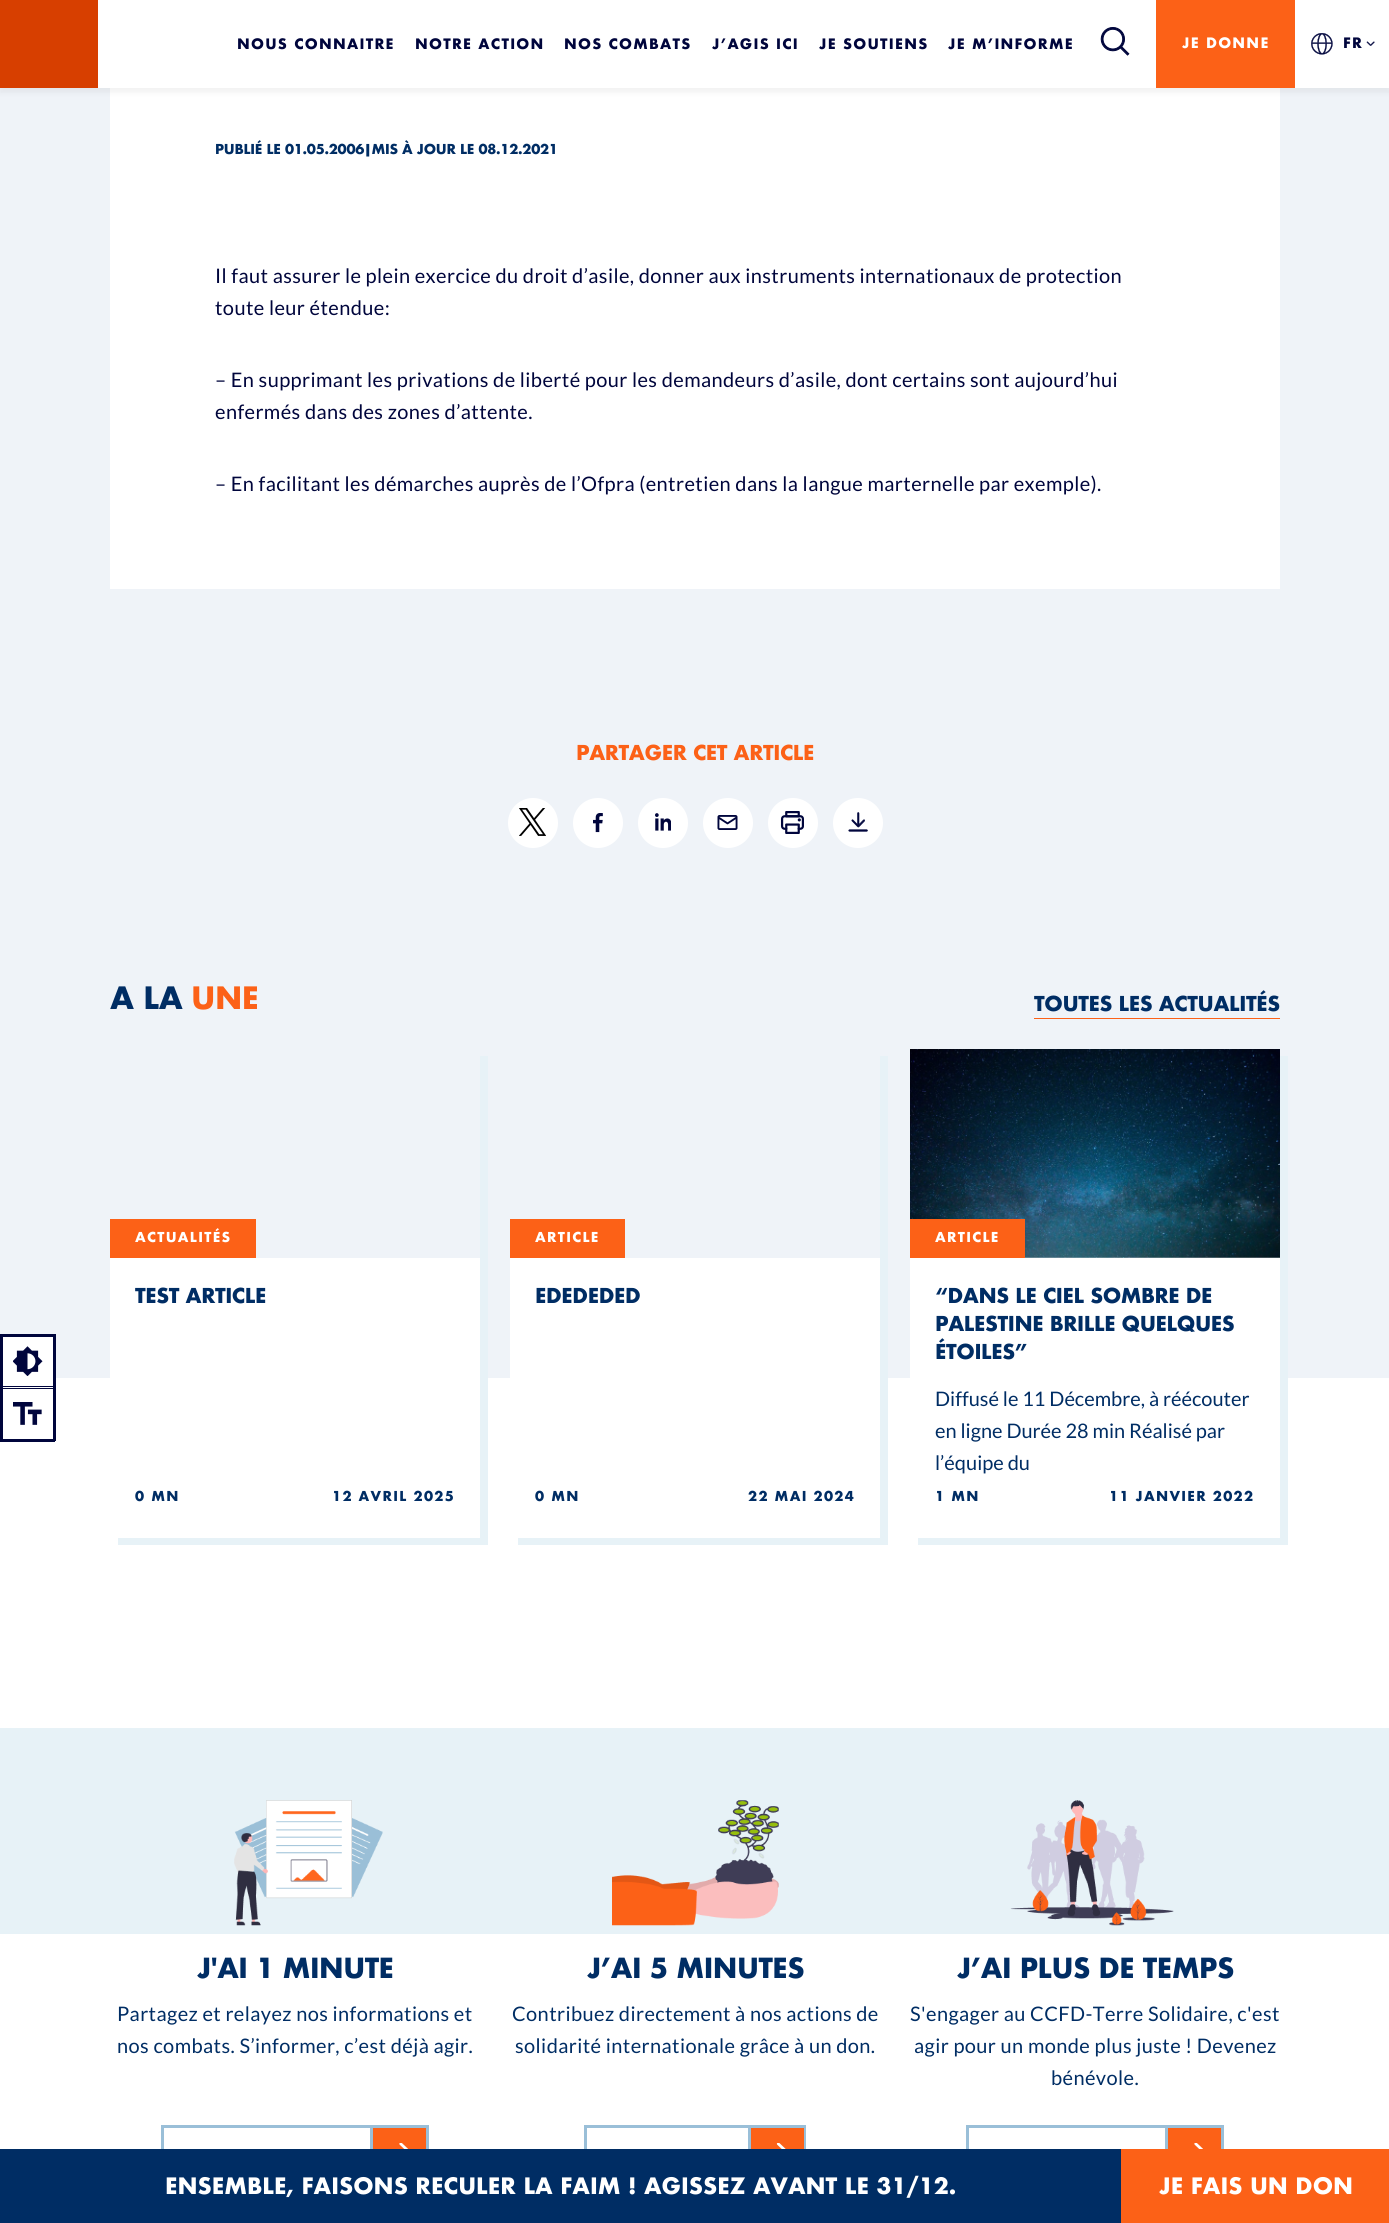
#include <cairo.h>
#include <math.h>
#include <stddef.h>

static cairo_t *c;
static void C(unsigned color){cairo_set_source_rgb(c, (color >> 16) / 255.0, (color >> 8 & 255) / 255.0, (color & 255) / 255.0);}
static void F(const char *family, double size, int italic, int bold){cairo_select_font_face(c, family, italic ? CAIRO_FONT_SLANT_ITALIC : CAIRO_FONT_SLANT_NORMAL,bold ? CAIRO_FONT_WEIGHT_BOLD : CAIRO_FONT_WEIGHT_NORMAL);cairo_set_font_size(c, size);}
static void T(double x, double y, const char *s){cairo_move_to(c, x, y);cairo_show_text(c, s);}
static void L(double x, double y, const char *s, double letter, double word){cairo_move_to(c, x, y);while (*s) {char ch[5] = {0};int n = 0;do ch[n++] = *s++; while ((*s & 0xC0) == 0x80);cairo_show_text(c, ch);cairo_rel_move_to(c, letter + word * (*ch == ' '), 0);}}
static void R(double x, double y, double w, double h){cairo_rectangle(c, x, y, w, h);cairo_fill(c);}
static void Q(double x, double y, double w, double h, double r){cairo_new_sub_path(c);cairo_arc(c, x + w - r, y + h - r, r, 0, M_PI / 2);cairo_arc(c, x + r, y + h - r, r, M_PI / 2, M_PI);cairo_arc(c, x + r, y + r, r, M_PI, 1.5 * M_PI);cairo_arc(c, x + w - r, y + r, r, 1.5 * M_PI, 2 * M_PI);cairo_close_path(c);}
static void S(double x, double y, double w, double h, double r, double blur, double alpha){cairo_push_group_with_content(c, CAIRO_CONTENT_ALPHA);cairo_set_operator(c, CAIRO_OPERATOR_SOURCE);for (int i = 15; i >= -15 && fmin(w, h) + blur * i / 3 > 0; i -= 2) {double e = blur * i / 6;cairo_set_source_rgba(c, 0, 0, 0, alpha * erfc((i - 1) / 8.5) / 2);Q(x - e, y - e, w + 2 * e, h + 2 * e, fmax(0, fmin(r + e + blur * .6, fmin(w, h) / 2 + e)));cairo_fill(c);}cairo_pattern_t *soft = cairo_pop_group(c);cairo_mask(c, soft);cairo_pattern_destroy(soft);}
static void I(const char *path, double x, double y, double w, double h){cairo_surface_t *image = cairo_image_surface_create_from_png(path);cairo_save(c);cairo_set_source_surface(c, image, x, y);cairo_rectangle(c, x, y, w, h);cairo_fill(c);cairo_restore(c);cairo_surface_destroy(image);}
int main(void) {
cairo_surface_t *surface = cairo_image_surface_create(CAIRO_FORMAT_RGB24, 1389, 2223);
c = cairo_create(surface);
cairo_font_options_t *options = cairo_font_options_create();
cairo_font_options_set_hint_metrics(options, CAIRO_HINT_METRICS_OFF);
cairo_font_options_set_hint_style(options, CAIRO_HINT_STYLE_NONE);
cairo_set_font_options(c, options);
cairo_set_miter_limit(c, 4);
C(0xeff3f8);
cairo_paint(c);
C(0xffffff);
R(110,88,1170,501);
C(0x000000);
S(0,5,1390,88,0,2.5,.05);
C(0xffffff);
R(98,0,1291,88);
C(0xd73f00);
R(0,0,98,88);
F("Futura",14,0,1);
C(0x00053c);
L(237,49,"NOUS CONNAITRE",1.25,0);
L(415,49,"NOTRE ACTION",1.25,0);
L(564,49,"NOS COMBATS",1.25,0);
L(712,49,"J’AGIS ICI",1.25,0);
L(819,49,"JE SOUTIENS",1.25,0);
L(948,49,"JE M’INFORME",1.25,0);
I("1.png",1100,27,30,29);
C(0xfc6117);
R(1156,0,139,88);
C(0xffffff);
L(1182,48,"JE DONNE",1.25,0);
I("2.png",1311,33,22,22);
C(0x00053c);
L(1343,48,"FR",1.25,0);
I("3.png",1366,41,9,5);
C(0xffffff);
R(3,1337,50,41);
C(0x00053c);
R(0,1334,55,3);
C(0xffffff);
R(0,1378,1389,771);
C(0x00053c);
R(53,1334,3,54);
R(0,1386,55,1);
R(0,1334,3,54);
I("4.png",13,1346,30,30);
R(0,1388,55,1);
R(53,1388,3,53);
R(0,1439,55,3);
R(0,1388,3,53);
I("5.png",13,1402,29,23);
F("Futura",13.35,0,1);
C(0x002d64);
L(215,154,"PUBLIÉ LE 01.05.2006|MIS À JOUR LE 08.12.2021",-.25,0);
F("Lato",20,0,0);
C(0x00053c);
L(215,283,"Il faut assurer le plein exercice du droit d’asile, donner aux instruments internationaux de protection",.4,0);
L(215,315,"toute leur étendue:",.4,0);
L(215,387,"– En supprimant les privations de liberté pour les demandeurs d’asile, dont certains sont aujourd’hui",.4,0);
L(215,419,"enfermés dans des zones d’attente.",.4,0);
L(215,491,"– En facilitant les démarches auprès de l’Ofpra (entretien dans la langue marternelle par exemple).",.4,0);
F("Futura",20,0,1);
C(0xfc6117);
L(576,760,"PARTAGER CET ARTICLE",-.4,0);
C(0xffffff);
cairo_new_path(c);
cairo_arc(c,533,823,25,0,2 * M_PI);
cairo_fill(c);
I("6.png",519,808,27,28);
cairo_arc(c,598,823,25,0,2 * M_PI);
cairo_fill(c);
I("7.png",593,813,10,20);
cairo_arc(c,663,823,25,0,2 * M_PI);
cairo_fill(c);
I("8.png",655,813,16,18);
cairo_arc(c,728,823,25,0,2 * M_PI);
cairo_fill(c);
I("9.png",717,815,21,15);
cairo_arc(c,793,823,25,0,2 * M_PI);
cairo_fill(c);
I("10.png",780,811,24,23);
cairo_arc(c,858,823,25,0,2 * M_PI);
cairo_fill(c);
I("11.png",848,812,20,20);
F("Futura",30,0,1);
C(0x002d64);
L(110,1009,"A LA",-.5,0);
C(0xfc6117);
L(191,1009,"UNE",-.5,0);
F("Futura",20,0,1);
C(0x002d64);
L(1034,1011,"TOUTES LES ACTUALITÉS",-.4,0);
C(0xfc6117);
R(1034,1018,246,1);
C(0xe7f2f7);
cairo_new_path(c);
cairo_move_to(c,118,1538);
cairo_line_to(c,118,1545);
cairo_line_to(c,488,1545);
cairo_line_to(c,488,1056);
cairo_line_to(c,480,1056);
cairo_line_to(c,480,1538);
cairo_close_path(c);
cairo_fill(c);
C(0xfc6117);
R(110,1219,146,39);
F("Futura",13.35,0,1);
C(0xffffff);
L(135,1242,"ACTUALITÉS",1.3,0);
R(110,1258,370,120);
F("Futura",20,0,1);
C(0x002d64);
L(135,1303,"TEST ARTICLE",-.4,0);
F("Futura",13.35,0,1);
L(135,1501,"0 MN",1.3,0);
L(332,1501,"12 AVRIL 2025",1.3,0);
C(0xe7f2f7);
cairo_new_path(c);
cairo_move_to(c,518,1538);
cairo_line_to(c,518,1545);
cairo_line_to(c,888,1545);
cairo_line_to(c,888,1056);
cairo_line_to(c,880,1056);
cairo_line_to(c,880,1538);
cairo_close_path(c);
cairo_fill(c);
C(0xfc6117);
R(510,1219,115,39);
C(0xffffff);
L(535,1242,"ARTICLE",1.3,0);
R(510,1258,370,120);
F("Futura",20,0,1);
C(0x002d64);
L(535,1303,"EDEDEDED",-.4,0);
F("Futura",13.35,0,1);
L(535,1501,"0 MN",1.3,0);
L(748,1501,"22 MAI 2024",1.3,0);
C(0xe7f2f7);
cairo_new_path(c);
cairo_move_to(c,918,1538);
cairo_line_to(c,918,1545);
cairo_line_to(c,1288,1545);
cairo_line_to(c,1288,1056);
cairo_line_to(c,1280,1056);
cairo_line_to(c,1280,1538);
cairo_close_path(c);
cairo_fill(c);
I("12.png",910,1049,370,209);
C(0xfc6117);
R(910,1219,115,39);
C(0xffffff);
L(935,1242,"ARTICLE",1.3,0);
R(910,1258,370,120);
F("Futura",20,0,1);
C(0x002d64);
L(935,1303,"“DANS LE CIEL SOMBRE DE",-.4,0);
L(935,1331,"PALESTINE BRILLE QUELQUES",-.4,0);
L(935,1359,"ÉTOILES”",-.4,0);
F("Lato",20,0,0);
T(935,1406,"Diffusé le 11 Décembre, à réécouter");
T(935,1438,"en ligne Durée 28 min Réalisé par");
T(935,1470,"l’équipe du");
F("Futura",13.35,0,1);
L(935,1501,"1 MN",1.3,0);
L(1109,1501,"11 JANVIER 2022",1.3,0);
C(0xe7f2f7);
R(0,1728,1389,206);
I("13.png",234,1800,149,126);
F("Futura",27,0,1);
C(0x002d64);
L(197,1978,"J'AI 1 MINUTE",-.5,0);
F("Lato",20,0,0);
L(117,2021,"Partagez et relayez nos informations et",.4,0);
L(117,2053,"nos combats. S’informer, c’est déjà agir.",.4,0);
cairo_rectangle(c,162.5,2126.5,265,51);
C(0x9abfd8);
cairo_set_line_width(c,3);
cairo_stroke(c);
C(0xfc6117);
R(373,2128,53,21);
C(0x9abfd8);
R(370,2128,3,21);
I("14.png",399,2143,9,6);
I("15.png",612,1800,167,126);
F("Futura",27,0,1);
C(0x002d64);
L(587,1978,"J’AI 5 MINUTES",-.5,0);
F("Lato",20,0,0);
L(512,2021,"Contribuez directement à nos actions de",.4,0);
L(515,2053,"solidarité internationale grâce à un don.",.4,0);
cairo_rectangle(c,585.5,2126.5,219,51);
C(0x9abfd8);
cairo_stroke(c);
C(0xfc6117);
R(751,2128,53,21);
C(0x9abfd8);
R(748,2128,3,21);
I("16.png",776,2143,10,6);
I("17.png",1010,1800,164,126);
F("Futura",27,0,1);
C(0x002d64);
L(957,1978,"J’AI PLUS DE TEMPS",-.5,0);
F("Lato",20,0,0);
L(910,2021,"S'engager au CCFD-Terre Solidaire, c'est",.4,0);
L(914,2053,"agir pour un monde plus juste ! Devenez",.4,0);
L(1051,2085,"bénévole.",.4,0);
cairo_rectangle(c,967.5,2126.5,255,51);
C(0x9abfd8);
cairo_stroke(c);
C(0xfc6117);
R(1168,2128,53,21);
C(0x9abfd8);
R(1165,2128,3,21);
I("14.png",1194,2143,9,6);
C(0x002d64);
R(0,2149,1121,74);
F("Futura",22,0,1);
C(0xffffff);
T(165,2194,"ENSEMBLE, FAISONS RECULER LA FAIM ! AGISSEZ AVANT LE 31/12.");
C(0xfc6117);
R(1121,2149,268,74);
C(0xffffff);
T(1159,2194,"JE FAIS UN DON");
cairo_surface_write_to_png(surface, "o.png");
cairo_font_options_destroy(options);
cairo_destroy(c);
cairo_surface_destroy(surface);
return 0;
}
